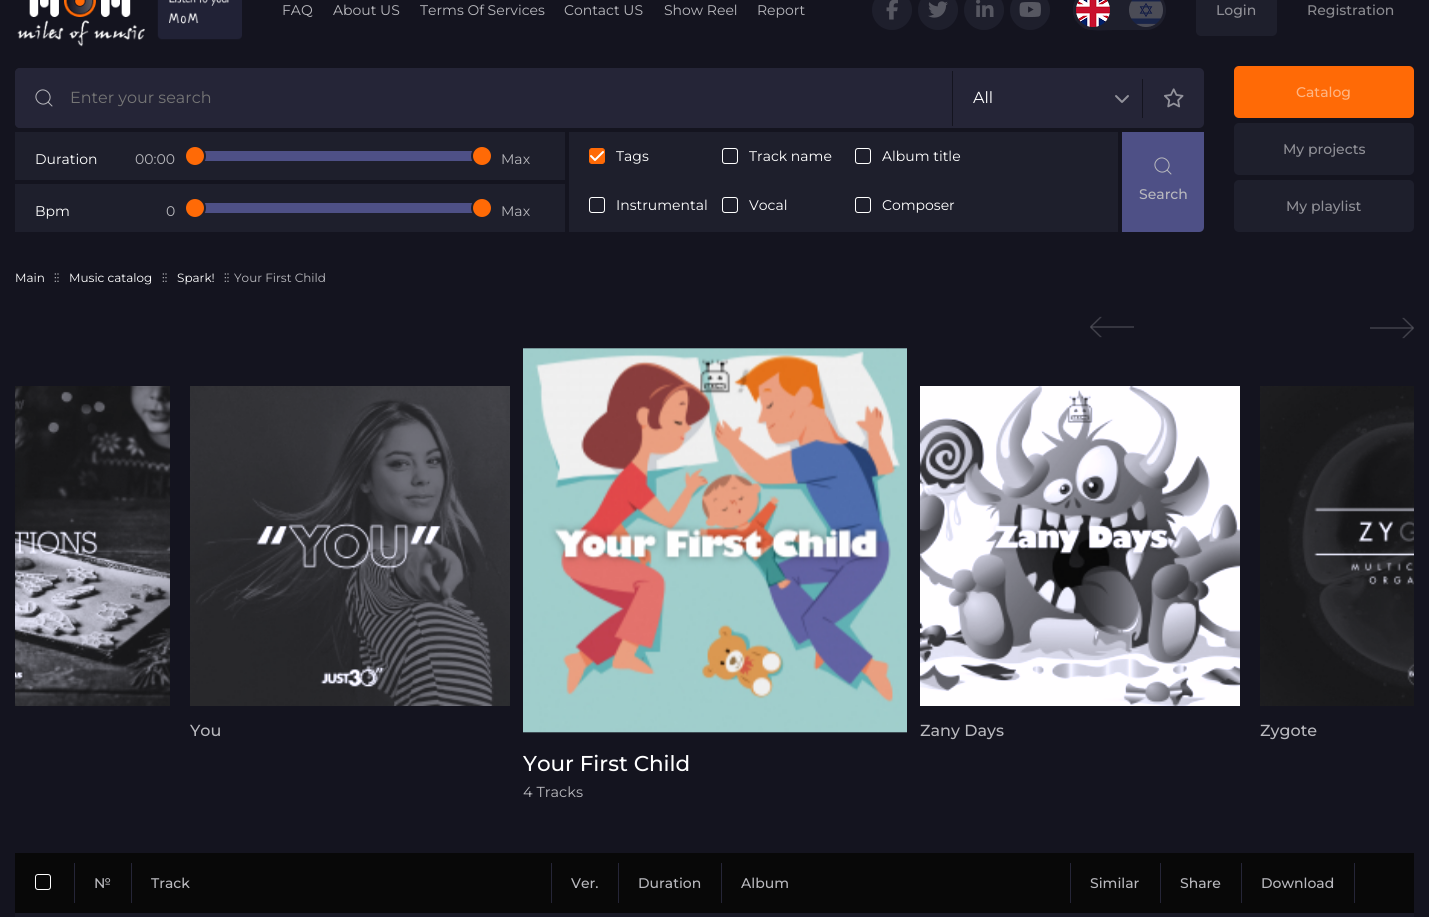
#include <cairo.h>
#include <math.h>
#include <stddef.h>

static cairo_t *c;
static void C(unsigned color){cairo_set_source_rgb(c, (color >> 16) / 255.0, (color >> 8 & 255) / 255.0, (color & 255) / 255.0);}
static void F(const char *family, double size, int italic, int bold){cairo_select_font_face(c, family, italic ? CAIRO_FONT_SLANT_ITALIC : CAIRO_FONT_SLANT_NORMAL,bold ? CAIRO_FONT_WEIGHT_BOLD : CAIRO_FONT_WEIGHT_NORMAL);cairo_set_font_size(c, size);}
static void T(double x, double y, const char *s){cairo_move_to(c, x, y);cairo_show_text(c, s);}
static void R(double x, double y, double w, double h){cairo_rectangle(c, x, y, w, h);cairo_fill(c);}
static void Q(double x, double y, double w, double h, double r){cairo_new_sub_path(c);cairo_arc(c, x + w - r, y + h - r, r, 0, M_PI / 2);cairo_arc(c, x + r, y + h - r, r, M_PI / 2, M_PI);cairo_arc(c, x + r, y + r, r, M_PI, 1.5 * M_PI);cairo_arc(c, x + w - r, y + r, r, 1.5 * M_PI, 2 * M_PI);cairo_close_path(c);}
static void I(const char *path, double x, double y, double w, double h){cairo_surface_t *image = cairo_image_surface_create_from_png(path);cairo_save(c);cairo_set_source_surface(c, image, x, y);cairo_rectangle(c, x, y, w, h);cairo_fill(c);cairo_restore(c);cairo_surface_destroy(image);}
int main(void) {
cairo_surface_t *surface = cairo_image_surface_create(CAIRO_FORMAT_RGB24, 1429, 917);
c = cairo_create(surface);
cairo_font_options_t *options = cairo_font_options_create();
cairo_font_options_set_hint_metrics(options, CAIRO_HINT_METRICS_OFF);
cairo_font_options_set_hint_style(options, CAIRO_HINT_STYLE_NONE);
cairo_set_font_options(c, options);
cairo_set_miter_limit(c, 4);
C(0x14141f);
cairo_paint(c);
I("1.png",17,0,225,47);
F("Montserrat",14,0,0);
C(0xb8b8bd);
T(282,15,"FAQ");
T(333,15,"About US");
T(420,15,"Terms Of Services");
T(564,15,"Contact US");
T(664,15,"Show Reel");
T(757,15,"Report");
C(0x1e1f2c);
cairo_new_path(c);
cairo_arc(c,892,10,20,0,2 * M_PI);
cairo_fill(c);
I("2.png",886,0,12,20);
cairo_arc(c,938,10,20,0,2 * M_PI);
cairo_fill(c);
I("3.png",928,1,20,17);
cairo_arc(c,984,10,20,0,2 * M_PI);
cairo_fill(c);
I("4.png",976,0,18,17);
cairo_arc(c,1030,10,20,0,2 * M_PI);
cairo_fill(c);
I("5.png",1019,2,22,15);
Q(1073,-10,93,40,20);
cairo_fill(c);
cairo_set_fill_rule(c,CAIRO_FILL_RULE_EVEN_ODD);
cairo_new_path(c);
cairo_move_to(c,1093,-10);
cairo_curve_to(c,1089,-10,1086,-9,1082,-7);
cairo_line_to(c,1110,-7);
cairo_line_to(c,1110,27);
cairo_line_to(c,1082,27);
cairo_curve_to(c,1090,32,1104,30,1113,30);
cairo_line_to(c,1113,-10);
cairo_close_path(c);
cairo_move_to(c,1076,21);
cairo_curve_to(c,1072,14,1072,6,1076,-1);
cairo_close_path(c);
cairo_fill(c);
I("6.png",1076,0,34,27);
I("7.png",1129,0,34,27);
Q(1196,-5,81,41,5);
cairo_fill(c);
F("Montserrat Medium",14,0,0);
C(0x8f8f96);
T(1216,15,"Login");
C(0x8a8a8f);
T(1307,15,"Registration");
C(0x252537);
Q(15,68,1189,60,5);
cairo_fill(c);
Q(15,68,937,60,5);
cairo_fill(c);
cairo_new_path(c);
cairo_move_to(c,48,102);
cairo_curve_to(c,54.5,95.5,44.5,85.5,38,92);
cairo_curve_to(c,31.5,98.5,41.5,108.5,48,102);
cairo_close_path(c);
cairo_move_to(c,48,102);
cairo_line_to(c,52,106);
C(0xb8b8bd);
cairo_set_line_width(c,1);
cairo_set_line_cap(c,CAIRO_LINE_CAP_ROUND);
cairo_set_line_join(c,CAIRO_LINE_JOIN_ROUND);
cairo_stroke(c);
F("Montserrat",16,0,0);
C(0x757575);
T(70,103,"Enter your search");
C(0x14141f);
R(952,71,1,55);
C(0xffffff);
T(973,103,"All");
I("8.png",1115,95,14,8);
C(0x14141f);
R(1142,79,1,39);
I("9.png",1164,88,20,20);
C(0x1e1f2c);
R(15,132,550,48);
F("Montserrat",14,0,0);
C(0xffffff);
T(35,164,"Duration");
C(0xb8b8bd);
T(135,164,"00:00");
C(0x4e5086);
R(204,151,269,10);
C(0xff6a06);
cairo_new_path(c);
cairo_arc(c,195,156,10,0,2 * M_PI);
cairo_fill_preserve(c);
C(0x1e1f2c);
cairo_set_line_width(c,2);
cairo_set_line_cap(c,CAIRO_LINE_CAP_BUTT);
cairo_set_line_join(c,CAIRO_LINE_JOIN_MITER);
cairo_stroke(c);
C(0xff6a06);
cairo_arc(c,482,156,10,0,2 * M_PI);
cairo_fill_preserve(c);
C(0x1e1f2c);
cairo_stroke(c);
C(0xb8b8bd);
T(501,164,"Max");
C(0x1e1f2c);
R(15,184,550,48);
C(0xffffff);
T(35,216,"Bpm");
C(0xb8b8bd);
T(166,216,"0");
C(0x4e5086);
R(204,203,269,10);
C(0xff6a06);
cairo_new_path(c);
cairo_arc(c,195,208,10,0,2 * M_PI);
cairo_fill_preserve(c);
C(0x1e1f2c);
cairo_stroke(c);
C(0xff6a06);
cairo_arc(c,482,208,10,0,2 * M_PI);
cairo_fill_preserve(c);
C(0x1e1f2c);
cairo_stroke(c);
C(0xb8b8bd);
T(501,216,"Max");
C(0x1e1f2c);
R(569,132,549,100);
C(0xff6a06);
Q(589.5,148.5,15,15,2.5);
cairo_fill_preserve(c);
cairo_set_line_width(c,1);
cairo_stroke(c);
I("10.png",590,151,14,10);
C(0xffffff);
T(616,161,"Tags");
Q(722.5,148.5,15,15,2.5);
cairo_stroke(c);
T(749,161,"Track name");
Q(855.5,148.5,15,15,2.5);
cairo_stroke(c);
T(882,161,"Album title");
Q(589.5,197.5,15,15,2.5);
cairo_stroke(c);
T(616,210,"Instrumental");
Q(722.5,197.5,15,15,2.5);
cairo_stroke(c);
T(749,210,"Vocal");
Q(855.5,197.5,15,15,2.5);
cairo_stroke(c);
T(882,210,"Composer");
C(0x4e5086);
cairo_new_path(c);
cairo_move_to(c,1122,132);
cairo_line_to(c,1204,132);
cairo_line_to(c,1204,227);
cairo_curve_to(c,1204,230,1202,232,1199,232);
cairo_line_to(c,1122,232);
cairo_close_path(c);
cairo_fill(c);
cairo_new_path(c);
cairo_move_to(c,1167,170);
cairo_curve_to(c,1173.5,163.5,1163.5,153.5,1157,160);
cairo_curve_to(c,1150.5,166.5,1160.5,176.5,1167,170);
cairo_close_path(c);
cairo_move_to(c,1167,170);
cairo_line_to(c,1171,174);
C(0xb8b8bd);
cairo_set_line_cap(c,CAIRO_LINE_CAP_ROUND);
cairo_set_line_join(c,CAIRO_LINE_JOIN_ROUND);
cairo_stroke(c);
F("Montserrat Medium",14,0,0);
T(1139,199,"Search");
C(0xff6a06);
Q(1234,66,180,52,5);
cairo_fill(c);
C(0xffb583);
T(1296,97,"Catalog");
C(0x1e1f2c);
Q(1234,123,180,52,5);
cairo_fill(c);
C(0x8f8f96);
T(1283,154,"My projects");
C(0x1e1f2c);
Q(1234,180,180,52,5);
cairo_fill(c);
C(0x8f8f96);
T(1286,211,"My playlist");
F("Montserrat",12,0,0);
C(0xffffff);
T(15,282,"Main");
I("11.png",54,273,5,9);
T(69,282,"Music catalog");
I("11.png",162,273,5,9);
T(177,282,"Spark!");
I("11.png",224,273,5,9);
C(0xb8b8bd);
T(234,282,"Your First Child");
I("12.png",1090,316,44,22);
I("13.png",1370,317,44,22);
I("14.png",15,386,155,320);
I("15.png",190,386,320,320);
F("Montserrat Medium",16,0,0);
T(190,736,"You");
I("16.png",920,386,320,320);
T(920,736,"Zany Days");
I("17.png",1260,386,154,320);
T(1260,736,"Zygote");
I("18.png",523,348,384,385);
F("Montserrat Medium",21.5,0,0);
C(0xffffff);
T(523,771,"Your First Child");
F("Montserrat",14.5,0,0);
C(0xb8b8bd);
T(523,797,"4 Tracks");
C(0x080808);
R(15,853,1399,60);
C(0x191a26);
R(15,913,1399,4);
Q(35.5,874.5,15,15,2.5);
C(0xffffff);
cairo_set_line_cap(c,CAIRO_LINE_CAP_BUTT);
cairo_set_line_join(c,CAIRO_LINE_JOIN_MITER);
cairo_stroke(c);
C(0x252537);
R(74,863,1,40);
F("Montserrat Medium",14,0,0);
C(0xb8b8bd);
T(94,888,"№");
C(0x252537);
R(131,863,1,40);
C(0xb8b8bd);
T(151,888,"Track");
C(0x252537);
R(551,863,1,40);
C(0xb8b8bd);
T(571,888,"Ver.");
C(0x252537);
R(618,863,1,40);
C(0xb8b8bd);
T(638,888,"Duration");
C(0x252537);
R(721,863,1,40);
C(0xb8b8bd);
T(741,888,"Album");
C(0x252537);
R(1070,863,1,40);
C(0xb8b8bd);
T(1090,888,"Similar");
C(0x252537);
R(1160,863,1,40);
C(0xb8b8bd);
T(1180,888,"Share");
C(0x252537);
R(1241,863,1,40);
C(0xb8b8bd);
T(1261,888,"Download");
C(0x252537);
R(1354,863,1,40);
cairo_surface_write_to_png(surface, "o.png");
cairo_font_options_destroy(options);
cairo_destroy(c);
cairo_surface_destroy(surface);
return 0;
}
